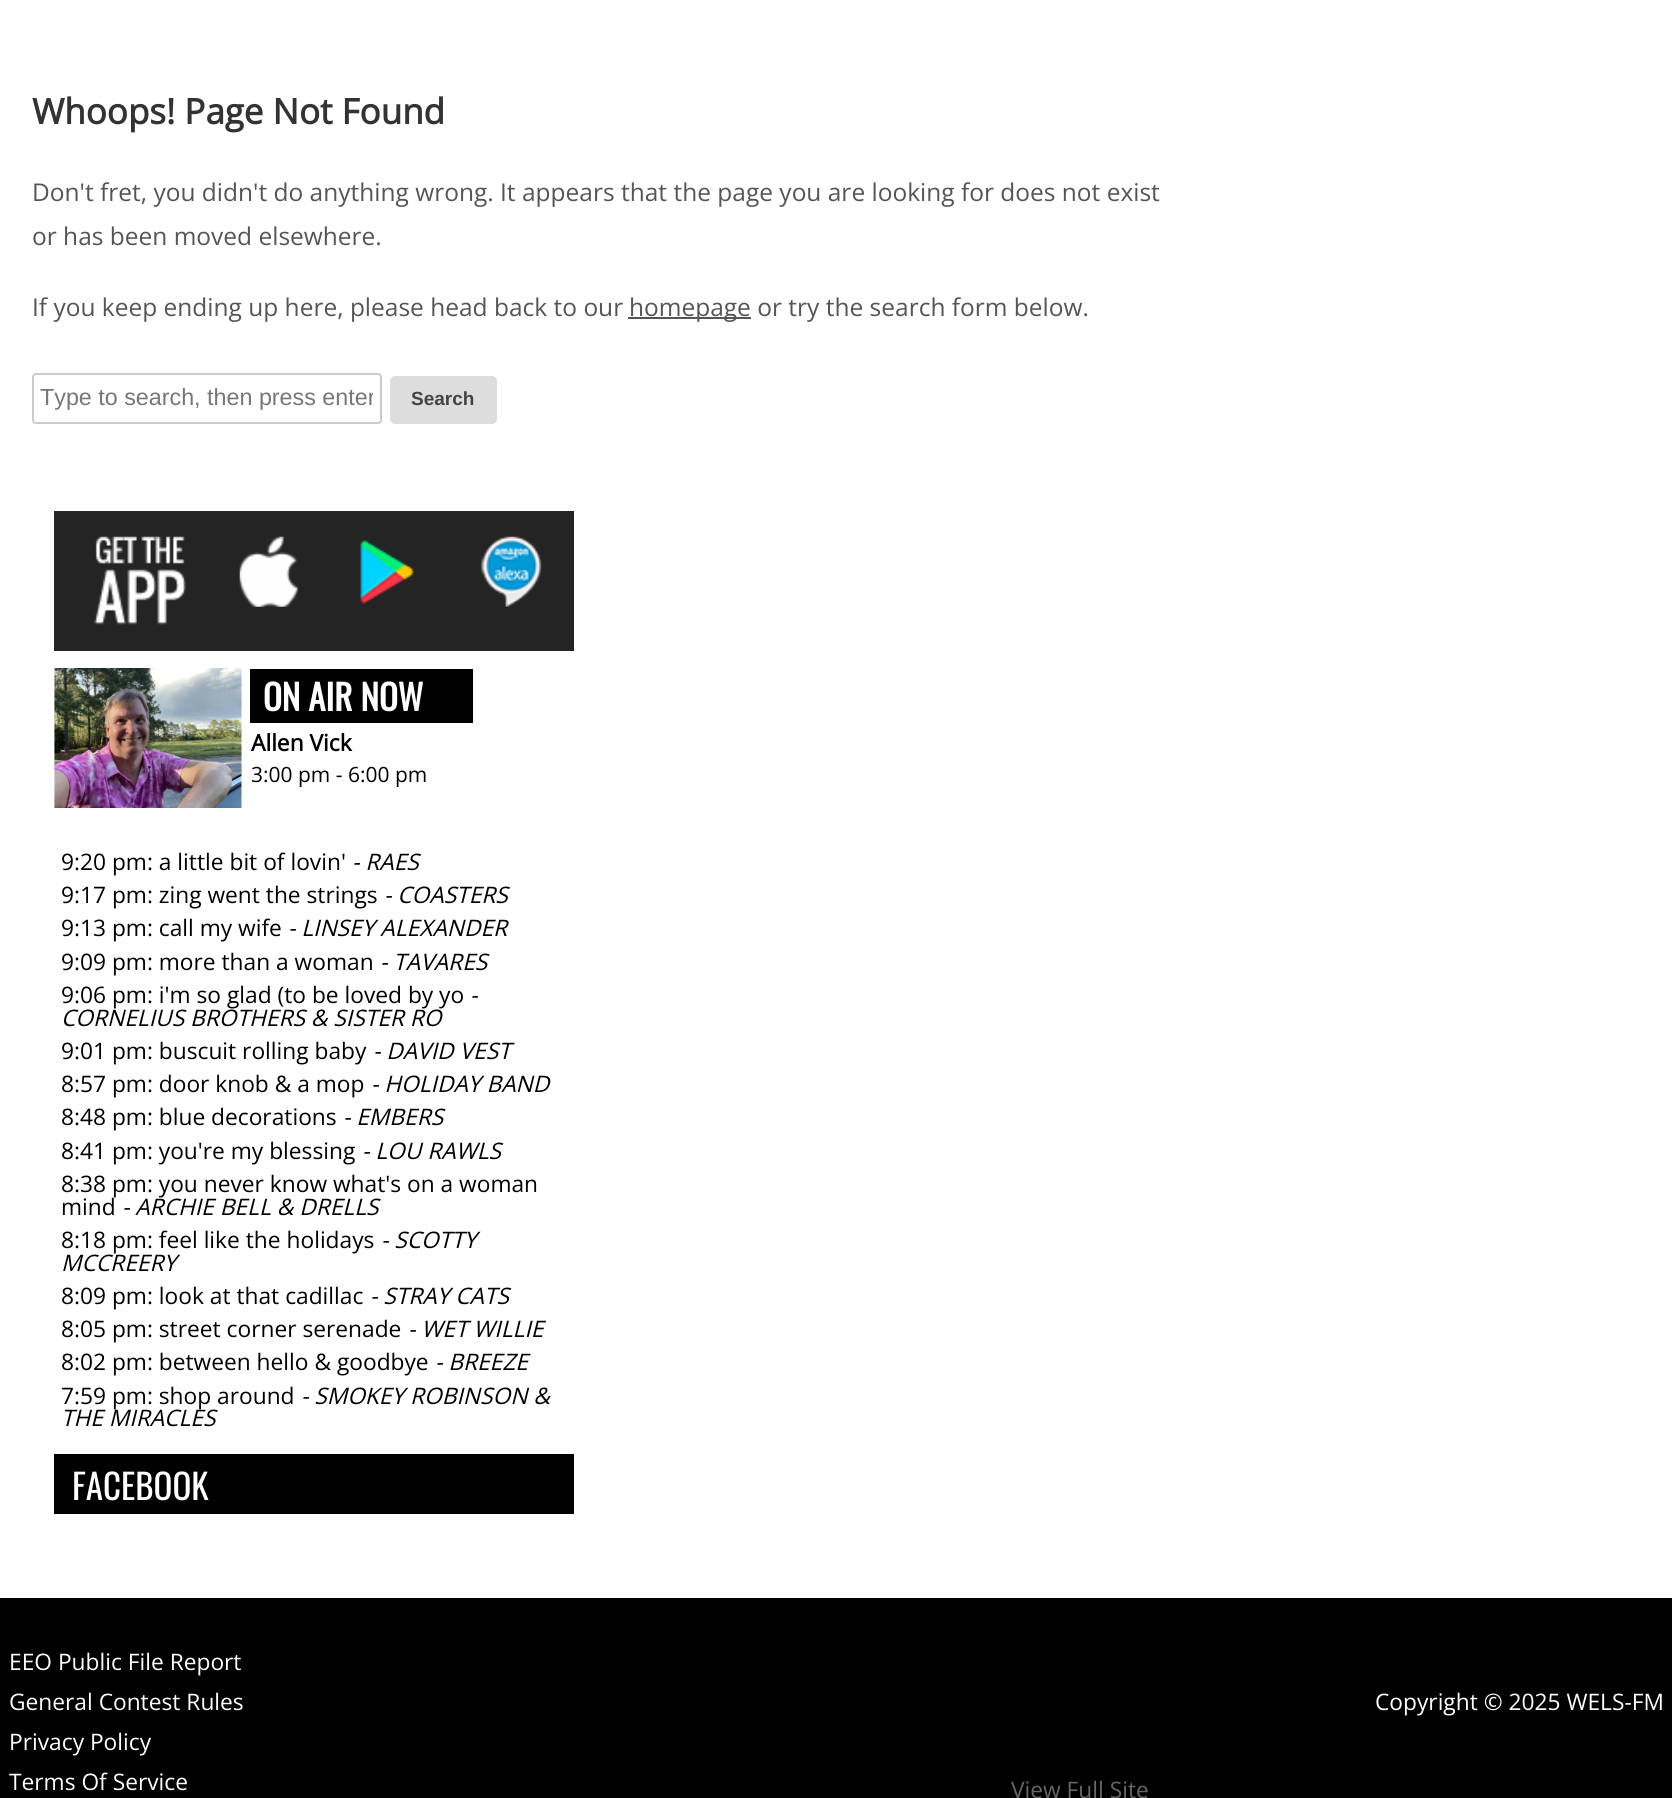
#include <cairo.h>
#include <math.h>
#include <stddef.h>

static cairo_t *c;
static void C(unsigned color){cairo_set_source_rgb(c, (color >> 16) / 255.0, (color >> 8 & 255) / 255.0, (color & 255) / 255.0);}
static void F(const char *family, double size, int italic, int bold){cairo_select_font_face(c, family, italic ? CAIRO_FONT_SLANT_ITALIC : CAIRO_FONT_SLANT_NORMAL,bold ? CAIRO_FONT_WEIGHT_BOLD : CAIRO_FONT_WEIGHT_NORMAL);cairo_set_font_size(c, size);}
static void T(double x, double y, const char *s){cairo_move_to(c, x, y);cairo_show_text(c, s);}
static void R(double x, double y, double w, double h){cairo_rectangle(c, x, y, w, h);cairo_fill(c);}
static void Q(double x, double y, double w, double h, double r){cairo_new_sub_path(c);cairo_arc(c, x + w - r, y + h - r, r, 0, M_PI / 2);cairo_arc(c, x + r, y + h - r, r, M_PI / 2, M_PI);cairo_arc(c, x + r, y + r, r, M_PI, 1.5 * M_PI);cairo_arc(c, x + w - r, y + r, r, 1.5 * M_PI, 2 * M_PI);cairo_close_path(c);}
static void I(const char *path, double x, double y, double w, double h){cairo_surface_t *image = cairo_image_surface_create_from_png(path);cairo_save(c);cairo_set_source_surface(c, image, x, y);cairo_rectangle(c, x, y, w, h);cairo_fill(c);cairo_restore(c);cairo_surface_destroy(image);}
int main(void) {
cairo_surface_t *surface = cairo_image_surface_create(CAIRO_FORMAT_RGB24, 1672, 1798);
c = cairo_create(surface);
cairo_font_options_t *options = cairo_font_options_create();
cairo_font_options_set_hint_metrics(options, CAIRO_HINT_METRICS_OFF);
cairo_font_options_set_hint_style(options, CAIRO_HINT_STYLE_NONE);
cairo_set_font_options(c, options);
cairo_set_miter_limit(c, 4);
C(0xffffff);
cairo_paint(c);
F("Open Sans",35,0,1);
C(0x333333);
T(32,124,"Whoops! Page Not Found");
F("Open Sans",24.5,0,0);
C(0x555555);
T(32,201,"Don't fret, you didn't do anything wrong. It appears that the page you are looking for does not exist");
T(32,245,"or has been moved elsewhere.");
T(32,316,"If you keep ending up here, please head back to our");
R(628,317,123,2);
T(629,316,"homepage or try the search form below.");
Q(33,374,348,49,3);
C(0xcccccc);
cairo_stroke(c);
cairo_save(c);
cairo_rectangle(c,40,385,333,26);
cairo_clip(c);
F("Liberation Sans",23.3,0,0);
C(0x777777);
T(40,405,"Type to search, then press enter");
cairo_restore(c);
C(0xdddddd);
Q(390,376,107,48,5);
cairo_fill(c);
F("Liberation Sans",19,0,1);
C(0x444444);
T(411,405,"Search");
C(0x242424);
R(54,511,520,140);
I("1.png",94,536,92,89);
I("2.png",239,536,59,71);
I("3.png",360,539,54,65);
I("4.png",480,536,62,71);
I("5.png",54,668,188,140);
C(0x000000);
R(250,669,223,54);
F("Oswald",35,0,1);
C(0xffffff);
T(263,711,"ON AIR NOW");
F("Open Sans",22.75,0,1);
C(0x000000);
T(251,751,"Allen Vick");
F("Open Sans",21,0,0);
T(251,782,"3:00 pm - 6:00 pm");
F("Open Sans",22.75,0,0);
T(61,870,"9:20 pm: a little bit of lovin'");
F("Open Sans",22.75,1,0);
T(352,870,"- RAES");
F("Open Sans",22.75,0,0);
T(61,903,"9:17 pm: zing went the strings");
F("Open Sans",22.75,1,0);
T(384,903,"- COASTERS");
F("Open Sans",22.75,0,0);
T(61,936,"9:13 pm: call my wife");
F("Open Sans",22.75,1,0);
T(288,936,"- LINSEY ALEXANDER");
F("Open Sans",22.75,0,0);
T(61,970,"9:09 pm: more than a woman");
F("Open Sans",22.75,1,0);
T(380,970,"- TAVARES");
F("Open Sans",22.75,0,0);
T(61,1003,"9:06 pm: i'm so glad (to be loved by yo");
F("Open Sans",22.75,1,0);
T(470,1003,"-");
T(61,1026,"CORNELIUS BROTHERS & SISTER RO");
F("Open Sans",22.75,0,0);
T(61,1059,"9:01 pm: buscuit rolling baby");
F("Open Sans",22.75,1,0);
T(373,1059,"- DAVID VEST");
F("Open Sans",22.75,0,0);
T(61,1092,"8:57 pm: door knob & a mop");
F("Open Sans",22.75,1,0);
T(371,1092,"- HOLIDAY BAND");
F("Open Sans",22.75,0,0);
T(61,1125,"8:48 pm: blue decorations");
F("Open Sans",22.75,1,0);
T(343,1125,"- EMBERS");
F("Open Sans",22.75,0,0);
T(61,1159,"8:41 pm: you're my blessing");
F("Open Sans",22.75,1,0);
T(362,1159,"- LOU RAWLS");
F("Open Sans",22.75,0,0);
T(61,1192,"8:38 pm: you never know what's on a woman");
T(61,1215,"mind");
F("Open Sans",22.75,1,0);
T(122,1215,"- ARCHIE BELL & DRELLS");
F("Open Sans",22.75,0,0);
T(61,1248,"8:18 pm: feel like the holidays");
F("Open Sans",22.75,1,0);
T(381,1248,"- SCOTTY");
T(61,1271,"MCCREERY");
F("Open Sans",22.75,0,0);
T(61,1304,"8:09 pm: look at that cadillac");
F("Open Sans",22.75,1,0);
T(370,1304,"- STRAY CATS");
F("Open Sans",22.75,0,0);
T(61,1337,"8:05 pm: street corner serenade");
F("Open Sans",22.75,1,0);
T(408,1337,"- WET WILLIE");
F("Open Sans",22.75,0,0);
T(61,1370,"8:02 pm: between hello & goodbye");
F("Open Sans",22.75,1,0);
T(435,1370,"- BREEZE");
F("Open Sans",22.75,0,0);
T(61,1404,"7:59 pm: shop around");
F("Open Sans",22.75,1,0);
T(301,1404,"- SMOKEY ROBINSON &");
T(61,1426,"THE MIRACLES");
R(54,1454,520,60);
F("Oswald",35,0,0);
C(0xffffff);
T(72,1500,"FACEBOOK");
C(0x000000);
R(0,1598,1672,200);
F("Open Sans",22.75,0,0);
C(0xffffff);
T(9,1670,"EEO Public File Report");
T(9,1710,"General Contest Rules");
T(9,1750,"Privacy Policy");
T(9,1790,"Terms Of Service");
T(1375,1710,"Copyright © 2025 WELS-FM");
C(0x666666);
T(1011,1798,"View Full Site");
cairo_surface_write_to_png(surface, "o.png");
cairo_font_options_destroy(options);
cairo_destroy(c);
cairo_surface_destroy(surface);
return 0;
}
